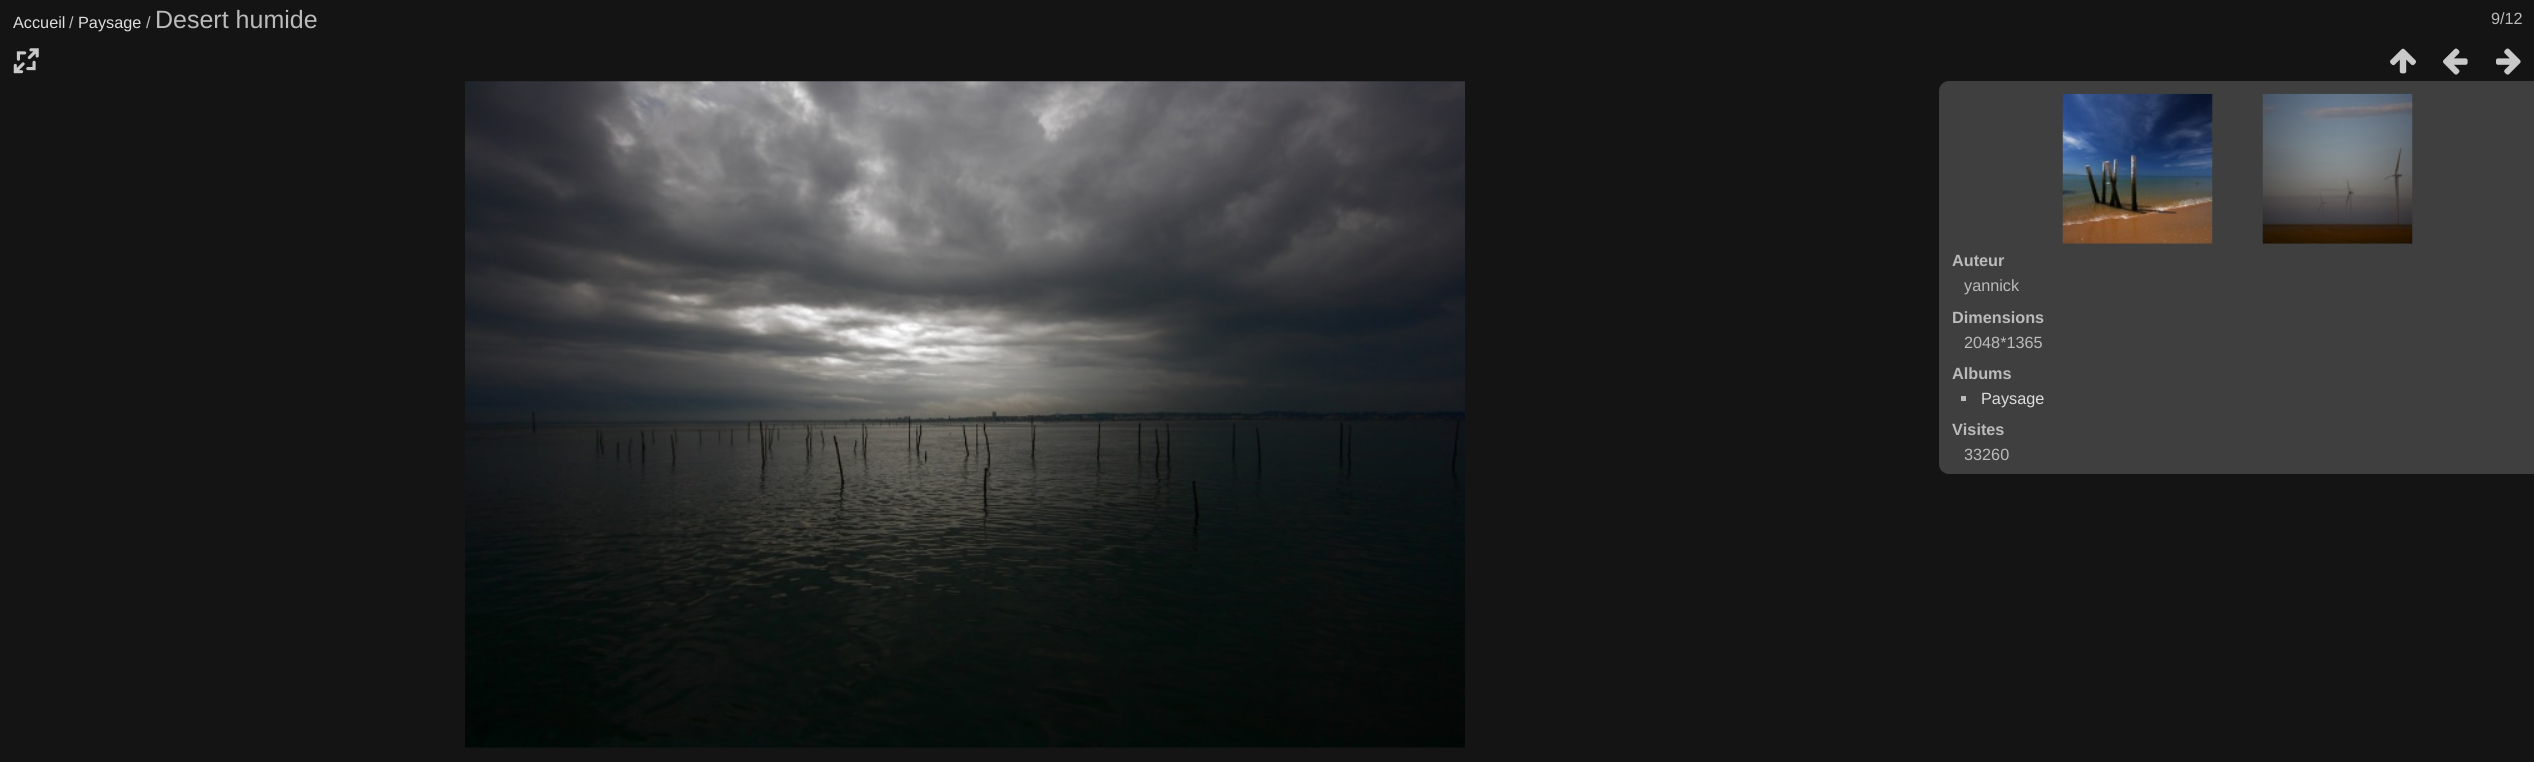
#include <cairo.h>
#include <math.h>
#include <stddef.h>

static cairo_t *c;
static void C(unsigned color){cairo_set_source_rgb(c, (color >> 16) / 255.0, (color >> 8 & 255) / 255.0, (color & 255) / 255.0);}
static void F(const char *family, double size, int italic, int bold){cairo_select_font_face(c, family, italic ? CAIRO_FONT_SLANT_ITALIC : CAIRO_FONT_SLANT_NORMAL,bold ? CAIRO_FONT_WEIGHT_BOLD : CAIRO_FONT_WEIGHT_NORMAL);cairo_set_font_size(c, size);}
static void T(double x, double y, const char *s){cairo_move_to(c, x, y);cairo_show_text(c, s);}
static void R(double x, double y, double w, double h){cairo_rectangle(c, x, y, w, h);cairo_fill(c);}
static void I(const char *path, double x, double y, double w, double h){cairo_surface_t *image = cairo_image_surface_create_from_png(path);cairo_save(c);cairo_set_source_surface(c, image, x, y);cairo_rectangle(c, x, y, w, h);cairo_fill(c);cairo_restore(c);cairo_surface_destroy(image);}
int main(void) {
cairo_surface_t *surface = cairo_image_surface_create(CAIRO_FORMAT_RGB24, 2534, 762);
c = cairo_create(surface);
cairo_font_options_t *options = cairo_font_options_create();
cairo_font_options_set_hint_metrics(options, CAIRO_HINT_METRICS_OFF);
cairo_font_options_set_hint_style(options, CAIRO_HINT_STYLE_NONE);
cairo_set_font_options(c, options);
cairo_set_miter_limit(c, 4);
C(0x141414);
cairo_paint(c);
F("Liberation Sans",16.25,0,0);
C(0xdddddd);
T(13,28,"Accueil");
C(0xbbbbbb);
T(69,28,"/");
C(0xdddddd);
T(78,28,"Paysage");
C(0xbbbbbb);
T(146,28,"/");
F("Liberation Sans",25,0,0);
T(155,28,"Desert humide");
F("Liberation Sans",16.25,0,0);
T(2491,24,"9/12");
I("1.png",13,48,26,26);
F("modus",30,0,0);
C(0xc9c9c9);
T(2390,71,"↑");
T(2443,71,"←");
T(2496,71,"→");
I("2.png",465,81,1000,667);
C(0x3f3f3f);
cairo_new_path(c);
cairo_move_to(c,1949,81);
cairo_line_to(c,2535,81);
cairo_line_to(c,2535,474);
cairo_line_to(c,1949,474);
cairo_curve_to(c,1943.5,474,1939,469.5,1939,464);
cairo_line_to(c,1939,91);
cairo_curve_to(c,1939,85.5,1943.5,81,1949,81);
cairo_close_path(c);
cairo_fill(c);
I("3.png",2062,93,151,151);
I("4.png",2262,93,151,151);
F("Liberation Sans",16.25,0,1);
C(0xbbbbbb);
T(1952,266,"Auteur");
F("Liberation Sans",16.25,0,0);
T(1964,291,"yannick");
F("Liberation Sans",16.25,0,1);
T(1952,323,"Dimensions");
F("Liberation Sans",16.25,0,0);
T(1964,348,"2048*1365");
F("Liberation Sans",16.25,0,1);
T(1952,379,"Albums");
R(1961,396,5,5);
F("Liberation Sans",16.25,0,0);
C(0xdddddd);
T(1981,404,"Paysage");
F("Liberation Sans",16.25,0,1);
C(0xbbbbbb);
T(1952,435,"Visites");
F("Liberation Sans",16.25,0,0);
T(1964,460,"33260");
cairo_surface_write_to_png(surface, "o.png");
cairo_font_options_destroy(options);
cairo_destroy(c);
cairo_surface_destroy(surface);
return 0;
}
